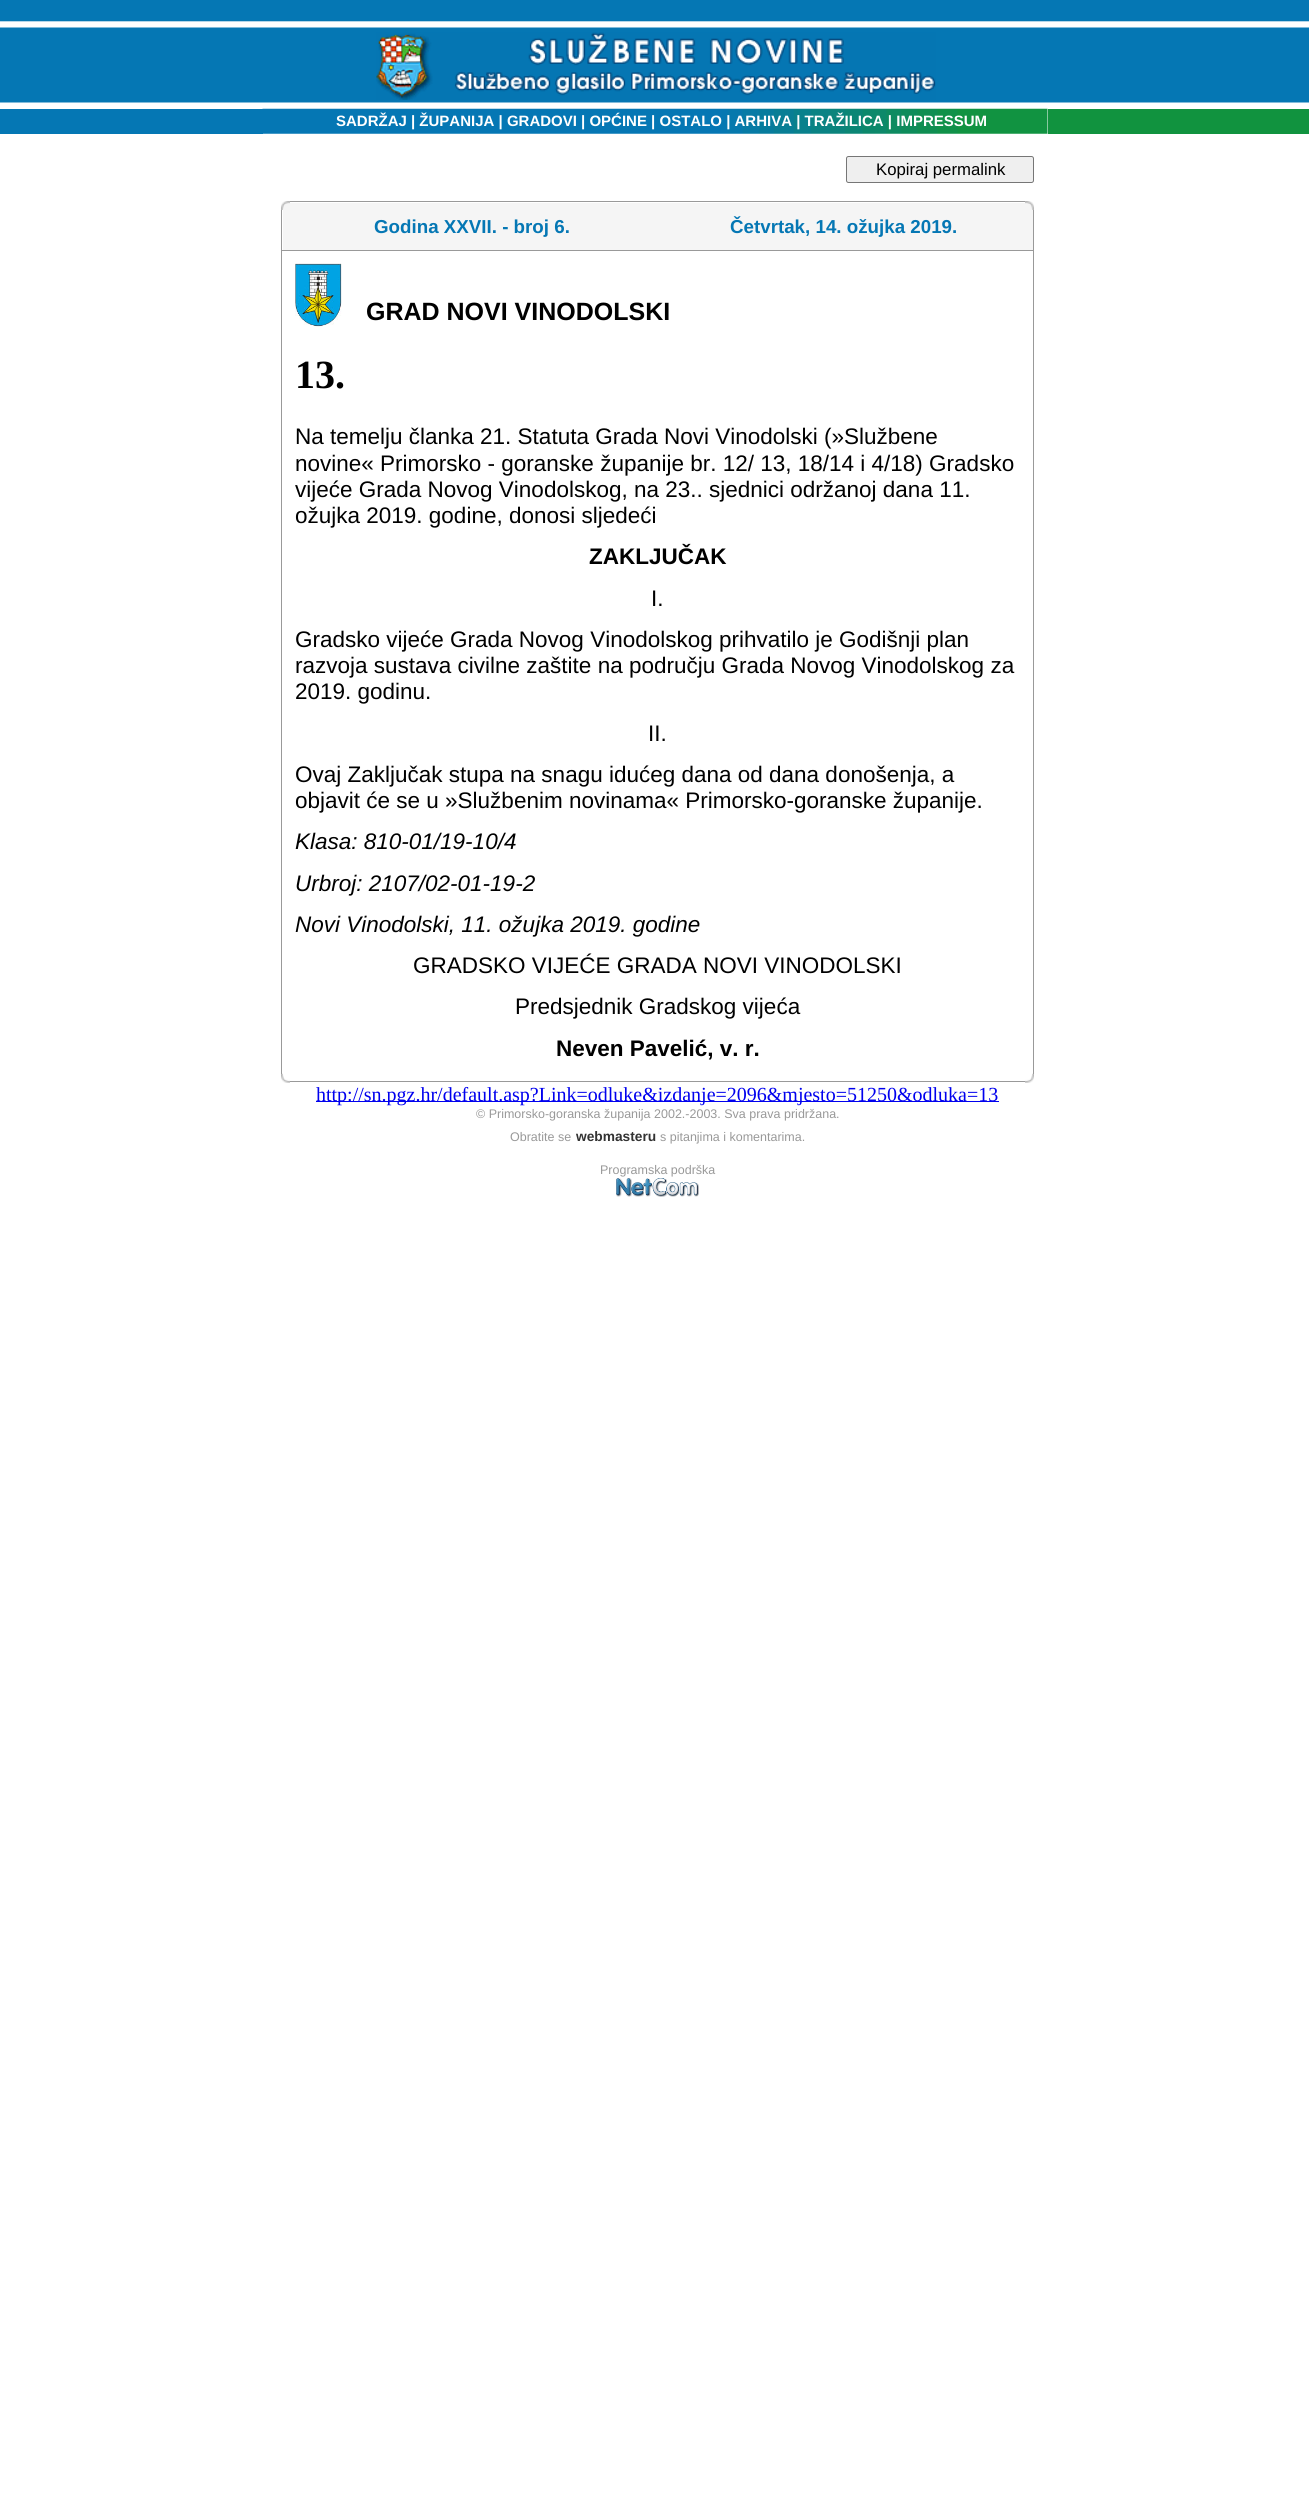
#include <cairo.h>
#include <math.h>
#include <stddef.h>

static cairo_t *c;
static void C(unsigned color){cairo_set_source_rgb(c, (color >> 16) / 255.0, (color >> 8 & 255) / 255.0, (color & 255) / 255.0);}
static void F(const char *family, double size, int italic, int bold){cairo_select_font_face(c, family, italic ? CAIRO_FONT_SLANT_ITALIC : CAIRO_FONT_SLANT_NORMAL,bold ? CAIRO_FONT_WEIGHT_BOLD : CAIRO_FONT_WEIGHT_NORMAL);cairo_set_font_size(c, size);}
static void T(double x, double y, const char *s){cairo_move_to(c, x, y);cairo_show_text(c, s);}
static void R(double x, double y, double w, double h){cairo_rectangle(c, x, y, w, h);cairo_fill(c);}
static void Q(double x, double y, double w, double h, double r){cairo_new_sub_path(c);cairo_arc(c, x + w - r, y + h - r, r, 0, M_PI / 2);cairo_arc(c, x + r, y + h - r, r, M_PI / 2, M_PI);cairo_arc(c, x + r, y + r, r, M_PI, 1.5 * M_PI);cairo_arc(c, x + w - r, y + r, r, 1.5 * M_PI, 2 * M_PI);cairo_close_path(c);}
static void I(const char *path, double x, double y, double w, double h){cairo_surface_t *image = cairo_image_surface_create_from_png(path);cairo_save(c);cairo_set_source_surface(c, image, x, y);cairo_rectangle(c, x, y, w, h);cairo_fill(c);cairo_restore(c);cairo_surface_destroy(image);}
int main(void) {
cairo_surface_t *surface = cairo_image_surface_create(CAIRO_FORMAT_RGB24, 1309, 2509);
c = cairo_create(surface);
cairo_font_options_t *options = cairo_font_options_create();
cairo_font_options_set_hint_metrics(options, CAIRO_HINT_METRICS_OFF);
cairo_font_options_set_hint_style(options, CAIRO_HINT_STYLE_NONE);
cairo_set_font_options(c, options);
cairo_set_miter_limit(c, 4);
C(0xffffff);
cairo_paint(c);
I("1.png",0,0,1309,103);
I("2.png",376,32,560,68);
C(0x0577b4);
R(0,109,263,25);
I("3.png",262,108,786,26);
F("Liberation Sans",15,0,1);
C(0xffffff);
T(336,126,"SADRŽAJ | ŽUPANIJA | GRADOVI | OPĆINE | OSTALO | ARHIVA | TRAŽILICA | IMPRESSUM");
C(0x11933f);
R(1048,109,261,25);
C(0xefefef);
Q(846.5,156.5,187,26,2);
cairo_fill_preserve(c);
C(0x767676);
cairo_set_line_width(c,1);
cairo_stroke(c);
F("Liberation Sans",16.75,0,0);
C(0x000000);
T(876,175,"Kopiraj permalink");
I("4.png",281,201,9,9);
C(0x999999);
R(290,201,735,1);
I("5.png",1025,201,9,9);
C(0xf5f5f5);
R(290,203,735,7);
C(0x999999);
R(281,210,1,40);
C(0xf5f5f5);
R(283,210,750,40);
F("Liberation Sans",18.75,0,1);
C(0x0577b4);
T(374,233,"Godina XXVII. - broj 6.");
T(730,233,"Četvrtak, 14. ožujka 2019.");
C(0x999999);
R(1033,210,1,40);
R(281,250,753,1);
R(281,251,1,823);
I("6.png",295,263,47,64);
F("Liberation Sans",25,0,1);
C(0x000000);
T(366,320,"GRAD NOVI VINODOLSKI");
F("Liberation Serif",40,0,1);
T(295,388,"13.");
F("Liberation Sans",22.5,0,0);
T(295,444,"Na temelju članka 21. Statuta Grada Novi Vinodolski (»Službene");
T(295,471,"novine« Primorsko - goranske županije br. 12/ 13, 18/14 i 4/18) Gradsko");
T(295,497,"vijeće Grada Novog Vinodolskog, na 23.. sjednici održanoj dana 11.");
T(295,523,"ožujka 2019. godine, donosi sljedeći");
F("Liberation Sans",22.5,0,1);
T(589,564,"ZAKLJUČAK");
F("Liberation Sans",22.5,0,0);
T(651,606,"I.");
T(295,647,"Gradsko vijeće Grada Novog Vinodolskog prihvatilo je Godišnji plan");
T(295,673,"razvoja sustava civilne zaštite na području Grada Novog Vinodolskog za");
T(295,699,"2019. godinu.");
T(648,741,"II.");
T(295,782,"Ovaj Zaključak stupa na snagu idućeg dana od dana donošenja, a");
T(295,808,"objavit će se u »Službenim novinama« Primorsko-goranske županije.");
F("Liberation Sans",22.5,1,0);
T(295,849,"Klasa: 810-01/19-10/4");
T(295,891,"Urbroj: 2107/02-01-19-2");
T(295,932,"Novi Vinodolski, 11. ožujka 2019. godine");
F("Liberation Sans",22.5,0,0);
T(413,973,"GRADSKO VIJEĆE GRADA NOVI VINODOLSKI");
T(515,1014,"Predsjednik Gradskog vijeća");
F("Liberation Sans",22.5,0,1);
T(556,1056,"Neven Pavelić, v. r.");
C(0x999999);
R(1033,251,1,823);
I("7.png",281,1073,9,10);
I("8.png",1025,1073,9,10);
R(290,1081,735,1);
C(0x0000ee);
R(316,1101,683,1);
F("Liberation Serif",20,0,0);
T(316,1101,"http://sn.pgz.hr/default.asp?Link=odluke&izdanje=2096&mjesto=51250&odluka=13");
F("Liberation Sans",12.5,0,0);
C(0x999999);
T(476,1118,"© Primorsko-goranska županija 2002.-2003. Sva prava pridržana.");
T(510,1141,"Obratite se");
F("Liberation Sans",13.75,0,1);
C(0x333333);
T(576,1141,"webmasteru");
F("Liberation Sans",12.5,0,0);
C(0x999999);
T(660,1141,"s pitanjima i komentarima.");
T(600,1174,"Programska podrška");
I("9.png",616,1178,83,19);
cairo_surface_write_to_png(surface, "o.png");
cairo_font_options_destroy(options);
cairo_destroy(c);
cairo_surface_destroy(surface);
return 0;
}
